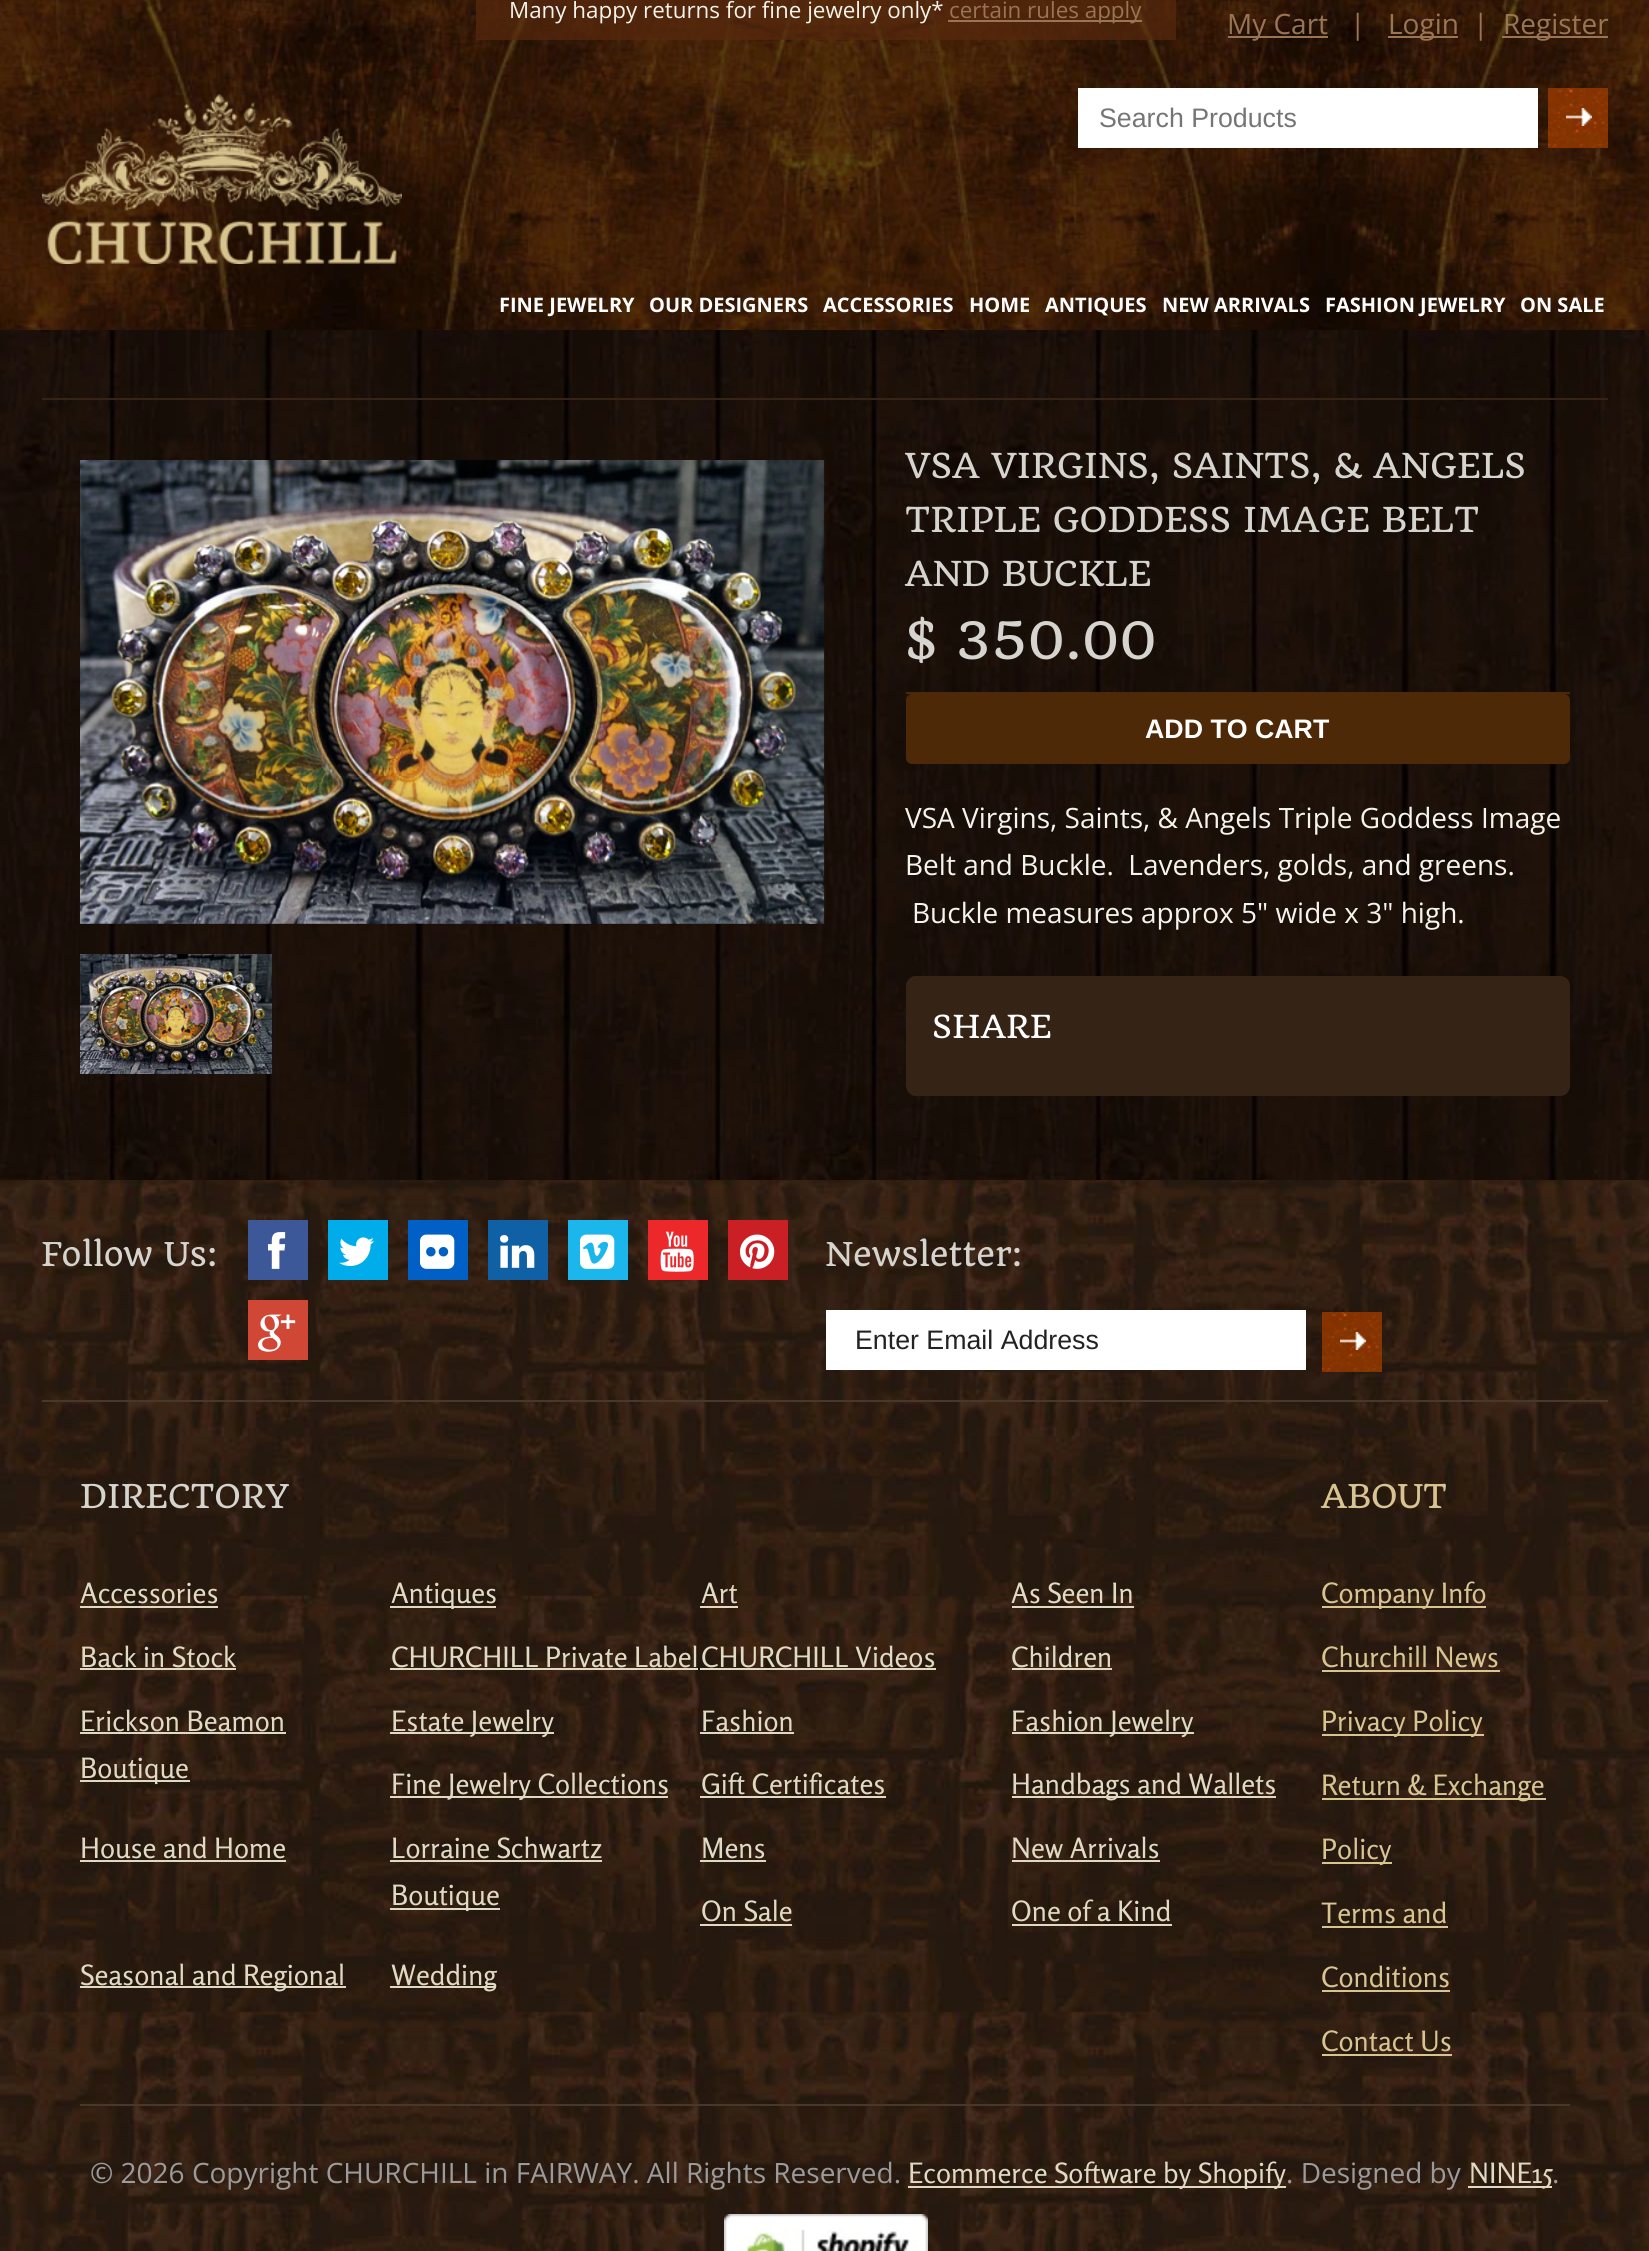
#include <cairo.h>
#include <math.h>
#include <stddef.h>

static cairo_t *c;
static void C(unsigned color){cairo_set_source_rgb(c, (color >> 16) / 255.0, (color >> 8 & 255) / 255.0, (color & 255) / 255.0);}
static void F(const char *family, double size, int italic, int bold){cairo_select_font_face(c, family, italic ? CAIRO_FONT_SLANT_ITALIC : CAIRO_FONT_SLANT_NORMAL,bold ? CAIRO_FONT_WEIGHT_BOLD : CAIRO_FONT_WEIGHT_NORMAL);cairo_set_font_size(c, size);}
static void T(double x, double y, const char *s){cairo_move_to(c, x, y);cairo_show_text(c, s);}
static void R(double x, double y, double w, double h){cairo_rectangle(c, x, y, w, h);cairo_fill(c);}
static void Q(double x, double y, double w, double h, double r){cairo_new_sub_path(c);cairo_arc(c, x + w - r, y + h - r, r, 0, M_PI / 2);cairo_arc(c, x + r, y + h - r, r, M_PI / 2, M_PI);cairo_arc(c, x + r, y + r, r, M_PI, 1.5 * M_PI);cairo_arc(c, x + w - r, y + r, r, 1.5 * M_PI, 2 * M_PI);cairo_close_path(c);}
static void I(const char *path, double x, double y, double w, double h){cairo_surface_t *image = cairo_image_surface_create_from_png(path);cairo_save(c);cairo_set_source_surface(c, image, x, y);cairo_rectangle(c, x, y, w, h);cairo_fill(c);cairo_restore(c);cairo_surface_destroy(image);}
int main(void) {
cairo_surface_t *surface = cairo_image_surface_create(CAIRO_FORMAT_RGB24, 1649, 2251);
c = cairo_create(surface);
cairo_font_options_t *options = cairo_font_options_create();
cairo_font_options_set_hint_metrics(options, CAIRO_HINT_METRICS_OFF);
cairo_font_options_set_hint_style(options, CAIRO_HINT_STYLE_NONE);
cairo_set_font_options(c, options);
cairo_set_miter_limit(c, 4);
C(0xffffff);
cairo_paint(c);
I("1.png",0,0,1649,330);
cairo_set_source_rgba(c,0.345,0.157,0.055,0.7);
R(476,0,700,40);
F("Open Sans",22.4,0,0);
C(0xf4f4ed);
T(509,18,"Many happy returns for fine jewelry only*");
C(0x9a7554);
R(948,20,194,2);
T(949,18,"certain rules apply");
R(1228,36,100,2);
F("Open Sans",28,0,0);
T(1227,34,"My Cart");
T(1350,34,"|");
R(1388,36,70,2);
T(1388,34,"Login");
T(1473,34,"|");
R(1502,36,106,2);
T(1503,34,"Register");
I("2.png",42,94,360,170);
C(0xffffff);
R(1078,88,460,60);
F("Liberation Sans",26.75,0,0);
C(0x757575);
T(1099,127,"Search Products");
I("3.png",1548,88,60,60);
I("4.png",1566,108,26,18);
F("Open Sans",20,0,1);
C(0xffffff);
T(499,312,"FINE JEWELRY");
T(649,312,"OUR DESIGNERS");
T(823,312,"ACCESSORIES");
T(969,312,"HOME");
T(1045,312,"ANTIQUES");
T(1162,312,"NEW ARRIVALS");
T(1325,312,"FASHION JEWELRY");
T(1520,312,"ON SALE");
I("5.png",0,330,1649,850);
C(0x352316);
R(42,398,1566,2);
I("6.png",80,460,745,464);
I("7.png",80,954,192,120);
F("Quando",33.6,0,0);
C(0xd5d4ce);
T(905,478,"VSA VIRGINS, SAINTS, & ANGELS");
T(905,532,"TRIPLE GODDESS IMAGE BELT");
T(905,586,"AND BUCKLE");
C(0x4d2907);
R(906,692,664,2);
F("Quando",50.5,0,0);
C(0xd5d4ce);
T(905,659,"$ 350.00");
C(0x4d2907);
Q(906,694,664,70,6);
cairo_fill(c);
F("Liberation Sans",26.75,0,1);
C(0xffffff);
T(1145,738,"ADD TO CART");
F("Open Sans",28,0,0);
C(0xf4f4ed);
T(905,828,"VSA Virgins, Saints, & Angels Triple Goddess Image");
T(905,875,"Belt and Buckle.  Lavenders, golds, and greens.");
T(912,923,"Buckle measures approx 5\" wide x 3\" high.");
C(0x352316);
Q(906,976,664,120,10);
cairo_fill(c);
F("Quando",31,0,0);
C(0xffffff);
T(932,1038,"SHARE");
I("8.png",0,1180,1649,1071);
C(0x48382b);
R(42,1400,1566,2);
F("Quando",32,0,0);
C(0xd5d4ce);
T(41,1266,"Follow Us:");
C(0x3c5899);
R(248,1220,60,60);
I("9.png",268,1232,18,37);
C(0x00adea);
R(328,1220,60,60);
I("10.png",339,1237,35,29);
C(0x0060c6);
R(408,1220,60,60);
I("11.png",420,1234,35,35);
C(0x1060a5);
R(488,1220,60,60);
I("12.png",500,1235,35,33);
C(0x1bb6ec);
R(568,1220,60,60);
I("13.png",580,1234,35,35);
C(0xec282a);
R(648,1220,60,60);
I("14.png",660,1231,34,41);
C(0xca1f25);
R(728,1220,60,60);
I("15.png",740,1234,35,35);
C(0xd04735);
R(248,1300,60,60);
I("16.png",258,1314,38,38);
C(0xd5d4ce);
T(825,1266,"Newsletter:");
C(0xffffff);
R(826,1310,480,60);
F("Liberation Sans",26.75,0,0);
C(0x222222);
T(855,1349,"Enter Email Address");
I("3.png",1322,1312,60,60);
I("4.png",1340,1332,26,18);
C(0x48382b);
R(80,2104,1490,2);
F("Quando",32,0,0);
C(0xd5d4ce);
T(80,1508,"DIRECTORY");
F("Rosario",28,0,0);
C(0xe0dac3);
T(80,1603,"Accessories");
R(80,1606,138,2);
R(390,1606,106,2);
T(391,1603,"Antiques");
T(701,1603,"Art");
R(700,1606,38,2);
T(1011,1603,"As Seen In");
R(1012,1606,122,2);
T(80,1667,"Back in Stock");
R(80,1668,156,2);
T(391,1667,"CHURCHILL Private Label");
R(390,1668,308,2);
T(701,1667,"CHURCHILL Videos");
R(700,1668,236,2);
T(1011,1667,"Children");
R(1012,1668,100,2);
T(80,1731,"Erickson Beamon");
R(80,1732,206,2);
R(80,1780,110,2);
T(80,1778,"Boutique");
R(390,1732,164,2);
T(391,1731,"Estate Jewelry");
T(701,1731,"Fashion");
R(700,1732,94,2);
R(1012,1732,182,2);
T(1011,1731,"Fashion Jewelry");
R(390,1796,278,2);
T(391,1794,"Fine Jewelry Collections");
T(701,1794,"Gift Certificates");
R(700,1796,186,2);
R(1012,1796,264,2);
T(1011,1794,"Handbags and Wallets");
T(80,1858,"House and Home");
R(80,1860,206,2);
T(391,1858,"Lorraine Schwartz");
R(390,1860,212,2);
R(390,1908,110,2);
T(391,1905,"Boutique");
T(701,1858,"Mens");
R(700,1860,66,2);
T(1011,1858,"New Arrivals");
R(1012,1860,148,2);
T(701,1921,"On Sale");
R(700,1924,92,2);
T(1011,1921,"One of a Kind");
R(1012,1924,160,2);
R(80,1986,266,2);
T(80,1985,"Seasonal and Regional");
R(390,1986,106,2);
T(391,1985,"Wedding");
F("Quando",32,0,0);
C(0xd7c492);
T(1321,1508,"ABOUT");
R(1322,1606,164,2);
F("Rosario",28,0,0);
T(1321,1603,"Company Info");
T(1321,1667,"Churchill News");
R(1322,1670,178,2);
R(1322,1734,162,2);
T(1321,1731,"Privacy Policy");
R(1322,1798,224,2);
T(1321,1795,"Return & Exchange");
R(1322,1862,70,2);
T(1321,1859,"Policy");
T(1321,1923,"Terms and");
R(1322,1926,126,2);
T(1321,1987,"Conditions");
R(1322,1990,128,2);
T(1321,2051,"Contact Us");
R(1322,2054,130,2);
F("Open Sans",28,0,0);
C(0x9b9b9b);
T(90,2183,"© 2026 Copyright CHURCHILL in FAIRWAY. All Rights Reserved.");
C(0xe0dac3);
R(908,2186,378,2);
F("Rosario",28,0,0);
T(908,2183,"Ecommerce Software by Shopify");
F("Open Sans",28,0,0);
C(0x9b9b9b);
T(1286,2183,". Designed by");
C(0xe0dac3);
R(1468,2186,84,2);
F("Rosario",28,0,0);
T(1469,2183,"NINE15");
F("Open Sans",28,0,0);
C(0x9b9b9b);
T(1552,2183,".");
I("17.png",724,2214,204,37);
cairo_surface_write_to_png(surface, "o.png");
cairo_font_options_destroy(options);
cairo_destroy(c);
cairo_surface_destroy(surface);
return 0;
}
